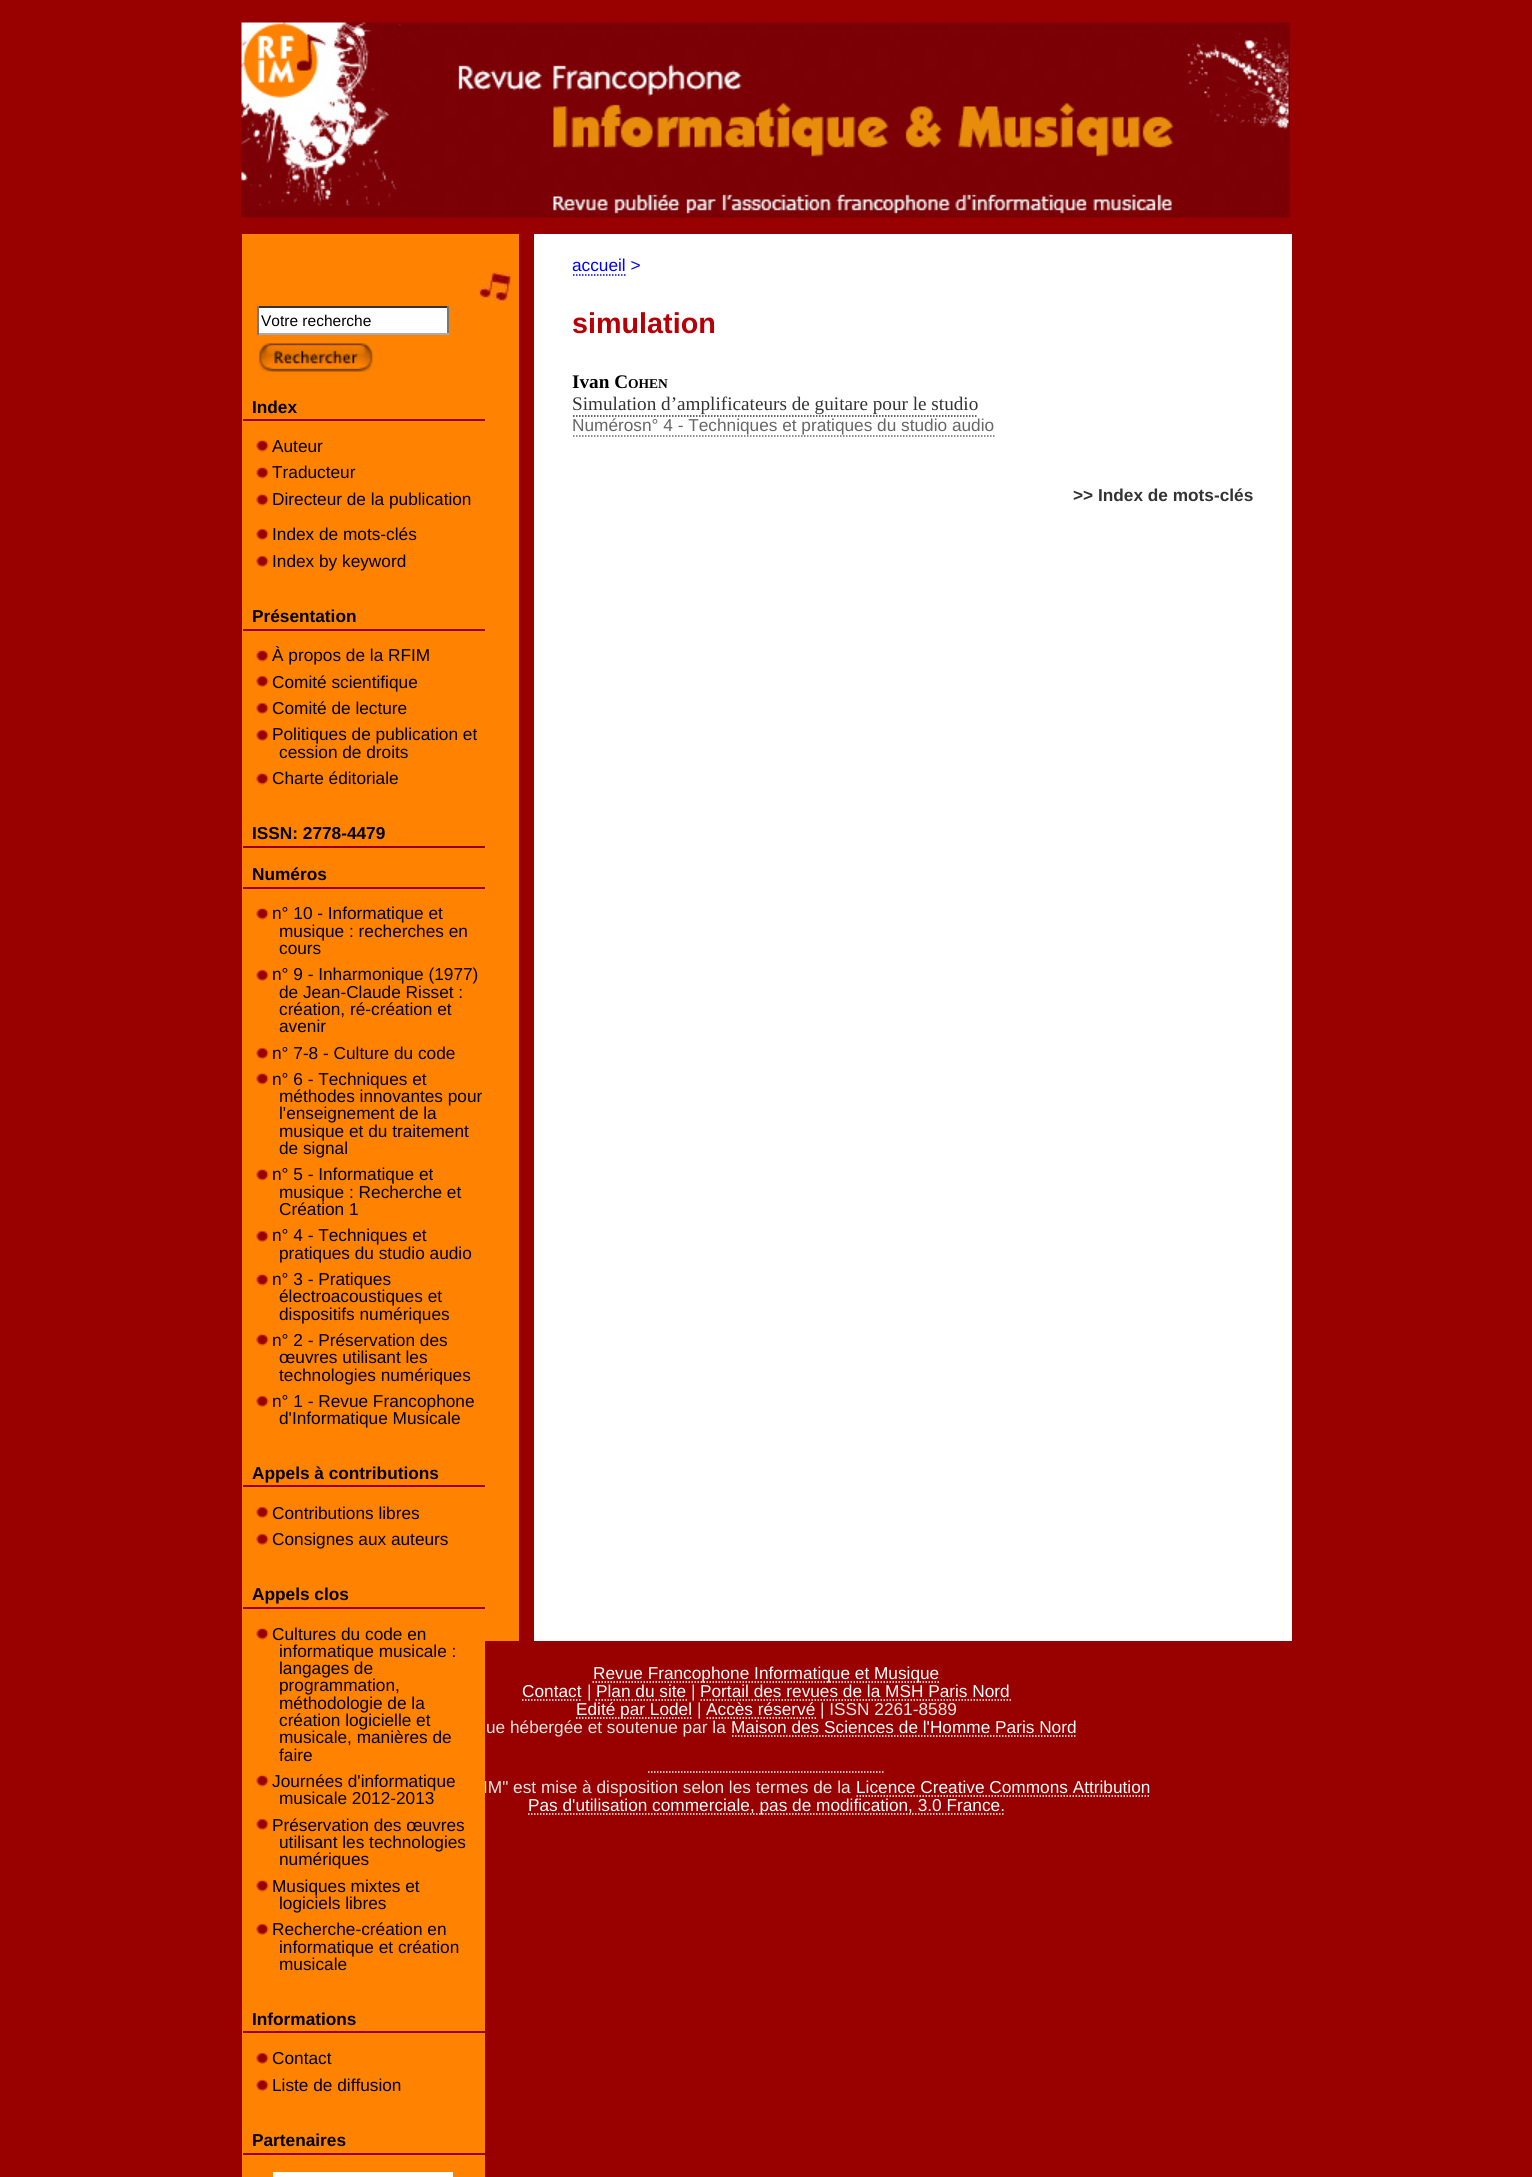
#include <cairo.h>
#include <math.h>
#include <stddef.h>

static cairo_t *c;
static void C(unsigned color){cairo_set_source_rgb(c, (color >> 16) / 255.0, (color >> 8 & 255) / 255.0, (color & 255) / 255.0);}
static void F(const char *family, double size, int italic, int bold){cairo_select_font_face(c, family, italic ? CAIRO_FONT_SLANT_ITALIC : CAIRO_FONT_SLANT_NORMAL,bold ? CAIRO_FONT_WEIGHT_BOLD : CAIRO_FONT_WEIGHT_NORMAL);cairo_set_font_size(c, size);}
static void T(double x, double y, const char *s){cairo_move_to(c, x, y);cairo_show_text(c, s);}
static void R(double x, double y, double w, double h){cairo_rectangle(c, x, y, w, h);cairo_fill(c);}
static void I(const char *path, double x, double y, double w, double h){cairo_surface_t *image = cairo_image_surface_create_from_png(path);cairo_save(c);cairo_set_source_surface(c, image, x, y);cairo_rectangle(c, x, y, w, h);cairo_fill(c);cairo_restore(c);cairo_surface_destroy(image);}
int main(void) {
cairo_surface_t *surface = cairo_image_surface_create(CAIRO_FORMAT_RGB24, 1532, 2177);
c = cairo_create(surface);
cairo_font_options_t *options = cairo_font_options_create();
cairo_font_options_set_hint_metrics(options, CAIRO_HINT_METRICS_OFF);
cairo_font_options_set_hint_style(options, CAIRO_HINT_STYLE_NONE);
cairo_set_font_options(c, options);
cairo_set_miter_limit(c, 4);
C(0x990000);
cairo_paint(c);
I("1.png",241,22,1049,196);
C(0xff8200);
R(242,234,277,1407);
F("Liberation Sans",17.25,0,0);
C(0xe5e8e3);
T(483,1793,"IM\" est mise à disposition selon les termes de la");
C(0xff8200);
R(242,1641,243,536);
I("2.png",478,271,34,32);
C(0xffffff);
R(259,308,188,25);
C(0x333333);
R(257,306,192,2);
C(0x777777);
R(447,306,2,29);
C(0xaaaaaa);
R(257,333,192,2);
C(0x777777);
R(257,306,2,29);
F("Liberation Sans",15.5,0,0);
C(0x000000);
T(261,326,"Votre recherche");
I("3.png",258,343,116,29);
C(0x990000);
R(243,419,242,2);
F("Liberation Sans",17.25,0,1);
C(0x000000);
T(252,413,"Index");
I("4.png",256,439,13,13);
F("Liberation Sans",17.25,0,0);
T(272,452,"Auteur");
I("4.png",256,466,13,13);
T(272,478,"Traducteur");
I("4.png",256,493,13,13);
T(272,505,"Directeur de la publication");
I("5.png",256,528,13,12);
T(272,540,"Index de mots-clés");
I("5.png",256,555,13,12);
T(272,567,"Index by keyword");
C(0x990000);
R(243,629,242,2);
F("Liberation Sans",17.25,0,1);
C(0x000000);
T(252,622,"Présentation");
I("4.png",256,649,13,13);
F("Liberation Sans",17.25,0,0);
T(272,661,"À propos de la RFIM");
I("5.png",256,675,13,12);
T(272,688,"Comité scientifique");
I("5.png",256,702,13,12);
T(272,714,"Comité de lecture");
I("5.png",256,729,13,12);
T(272,740,"Politiques de publication et");
T(279,758,"cession de droits");
I("4.png",256,772,13,13);
T(272,784,"Charte éditoriale");
C(0x990000);
R(243,846,242,2);
F("Liberation Sans",17.25,0,1);
C(0x000000);
T(252,839,"ISSN: 2778-4479");
C(0x990000);
R(243,887,242,2);
C(0x000000);
T(252,880,"Numéros");
I("4.png",256,907,13,13);
F("Liberation Sans",17.25,0,0);
T(272,919,"n° 10 - Informatique et");
T(279,937,"musique : recherches en");
T(279,954,"cours");
I("5.png",256,969,13,12);
T(272,980,"n° 9 - Inharmonique (1977)");
T(279,998,"de Jean-Claude Risset :");
T(279,1015,"création, ré-création et");
T(279,1032,"avenir");
I("5.png",256,1047,13,12);
T(272,1059,"n° 7-8 - Culture du code");
I("4.png",256,1072,13,13);
T(272,1085,"n° 6 - Techniques et");
T(279,1102,"méthodes innovantes pour");
T(279,1119,"l'enseignement de la");
T(279,1137,"musique et du traitement");
T(279,1154,"de signal");
I("4.png",256,1168,13,13);
T(272,1180,"n° 5 - Informatique et");
T(279,1198,"musique : Recherche et");
T(279,1215,"Création 1");
I("5.png",256,1230,13,12);
T(272,1241,"n° 4 - Techniques et");
T(279,1259,"pratiques du studio audio");
I("4.png",256,1273,13,13);
T(272,1285,"n° 3 - Pratiques");
T(279,1302,"électroacoustiques et");
T(279,1320,"dispositifs numériques");
I("4.png",256,1333,13,13);
T(272,1346,"n° 2 - Préservation des");
T(279,1363,"œuvres utilisant les");
T(279,1381,"technologies numériques");
I("5.png",256,1395,13,12);
T(272,1407,"n° 1 - Revue Francophone");
T(279,1424,"d'Informatique Musicale");
C(0x990000);
R(243,1485,242,2);
F("Liberation Sans",17.25,0,1);
C(0x000000);
T(252,1479,"Appels à contributions");
I("5.png",256,1506,13,12);
F("Liberation Sans",17.25,0,0);
T(272,1519,"Contributions libres");
I("5.png",256,1533,13,12);
T(272,1545,"Consignes aux auteurs");
C(0x990000);
R(243,1607,242,2);
F("Liberation Sans",17.25,0,1);
C(0x000000);
T(252,1600,"Appels clos");
I("4.png",256,1627,13,13);
F("Liberation Sans",17.25,0,0);
T(272,1640,"Cultures du code en");
T(279,1657,"informatique musicale :");
T(279,1674,"langages de");
T(279,1691,"programmation,");
T(279,1709,"méthodologie de la");
T(279,1726,"création logicielle et");
T(279,1743,"musicale, manières de");
T(279,1761,"faire");
I("4.png",256,1774,13,13);
T(272,1787,"Journées d'informatique");
T(279,1804,"musicale 2012-2013");
I("5.png",256,1818,13,12);
T(272,1831,"Préservation des œuvres");
T(279,1848,"utilisant les technologies");
T(279,1865,"numériques");
I("4.png",256,1879,13,13);
T(272,1892,"Musiques mixtes et");
T(279,1909,"logiciels libres");
I("5.png",256,1923,13,12);
T(272,1935,"Recherche-création en");
T(279,1953,"informatique et création");
T(279,1970,"musicale");
C(0x990000);
R(243,2031,242,2);
F("Liberation Sans",17.25,0,1);
C(0x000000);
T(252,2025,"Informations");
I("5.png",256,2052,13,12);
F("Liberation Sans",17.25,0,0);
T(272,2064,"Contact");
I("5.png",256,2079,13,12);
T(272,2091,"Liste de diffusion");
C(0x990000);
R(243,2153,242,2);
F("Liberation Sans",17.25,0,1);
C(0x000000);
T(252,2146,"Partenaires");
C(0xffffff);
R(273,2172,180,5);
R(534,234,758,1407);
F("Liberation Sans",17.25,0,0);
C(0x0000ff);
T(572,271,"accueil >");
cairo_new_path(c);
cairo_move_to(c,573,275);
cairo_line_to(c,625.5,275);
cairo_set_line_width(c,1.5);
cairo_set_dash(c,(double[]){1.5,1.5},2,0);
cairo_stroke(c);
F("Liberation Sans",28.75,0,1);
C(0xb70006);
T(572,333,"simulation");
F("Liberation Serif",19.2,0,1);
C(0x000000);
T(572,388,"Ivan C");
F("Liberation Serif",13.5,0,1);
T(628,388,"OHEN");
F("Liberation Serif",19.2,0,0);
C(0x333333);
T(572,410,"Simulation d’amplificateurs de guitare pour le studio");
cairo_new_path(c);
cairo_move_to(c,573,416);
cairo_line_to(c,978,416);
cairo_stroke(c);
F("Liberation Sans",17.25,0,0);
C(0x666666);
T(572,431,"Numérosn° 4 - Techniques et pratiques du studio audio");
cairo_new_path(c);
cairo_move_to(c,573,436);
cairo_line_to(c,642,436);
cairo_stroke(c);
cairo_new_path(c);
cairo_move_to(c,642,436);
cairo_line_to(c,994.5,436);
cairo_stroke(c);
F("Liberation Sans",17.25,0,1);
C(0x333333);
T(1073,501,">> Index de mots-clés");
cairo_new_path(c);
cairo_move_to(c,592.5,1682);
cairo_line_to(c,940.5,1682);
C(0xffffff);
cairo_stroke(c);
F("Liberation Sans",17.25,0,0);
T(593,1679,"Revue Francophone Informatique et Musique");
T(522,1697,"Contact");
cairo_new_path(c);
cairo_move_to(c,522,1700);
cairo_line_to(c,582,1700);
cairo_stroke(c);
C(0xe5e8e3);
T(587,1697,"|");
C(0xffffff);
T(596,1697,"Plan du site");
cairo_new_path(c);
cairo_move_to(c,595.5,1700);
cairo_line_to(c,687,1700);
cairo_stroke(c);
C(0xe5e8e3);
T(691,1697,"|");
C(0xffffff);
T(700,1697,"Portail des revues de la MSH Paris Nord");
cairo_new_path(c);
cairo_move_to(c,700.5,1700);
cairo_line_to(c,1011,1700);
cairo_stroke(c);
cairo_new_path(c);
cairo_move_to(c,576,1718);
cairo_line_to(c,691.5,1718);
cairo_stroke(c);
T(576,1715,"Edité par Lodel");
C(0xe5e8e3);
T(697,1715,"|");
C(0xffffff);
T(706,1715,"Accès réservé");
cairo_new_path(c);
cairo_move_to(c,706.5,1718);
cairo_line_to(c,816,1718);
cairo_stroke(c);
C(0xe5e8e3);
T(820,1715,"| ISSN 2261-8589");
T(486,1733,"ue hébergée et soutenue par la");
C(0xffffff);
T(731,1733,"Maison des Sciences de l'Homme Paris Nord");
cairo_new_path(c);
cairo_move_to(c,732,1736);
cairo_line_to(c,1077,1736);
cairo_stroke(c);
cairo_new_path(c);
cairo_move_to(c,648,1772);
cairo_line_to(c,885,1772);
cairo_stroke(c);
T(856,1793,"Licence Creative Commons Attribution");
cairo_new_path(c);
cairo_move_to(c,856.5,1796);
cairo_line_to(c,1150.5,1796);
cairo_stroke(c);
cairo_new_path(c);
cairo_move_to(c,528,1814);
cairo_line_to(c,1005,1814);
cairo_stroke(c);
T(528,1811,"Pas d'utilisation commerciale, pas de modification, 3.0 France.");
cairo_surface_write_to_png(surface, "o.png");
cairo_font_options_destroy(options);
cairo_destroy(c);
cairo_surface_destroy(surface);
return 0;
}
